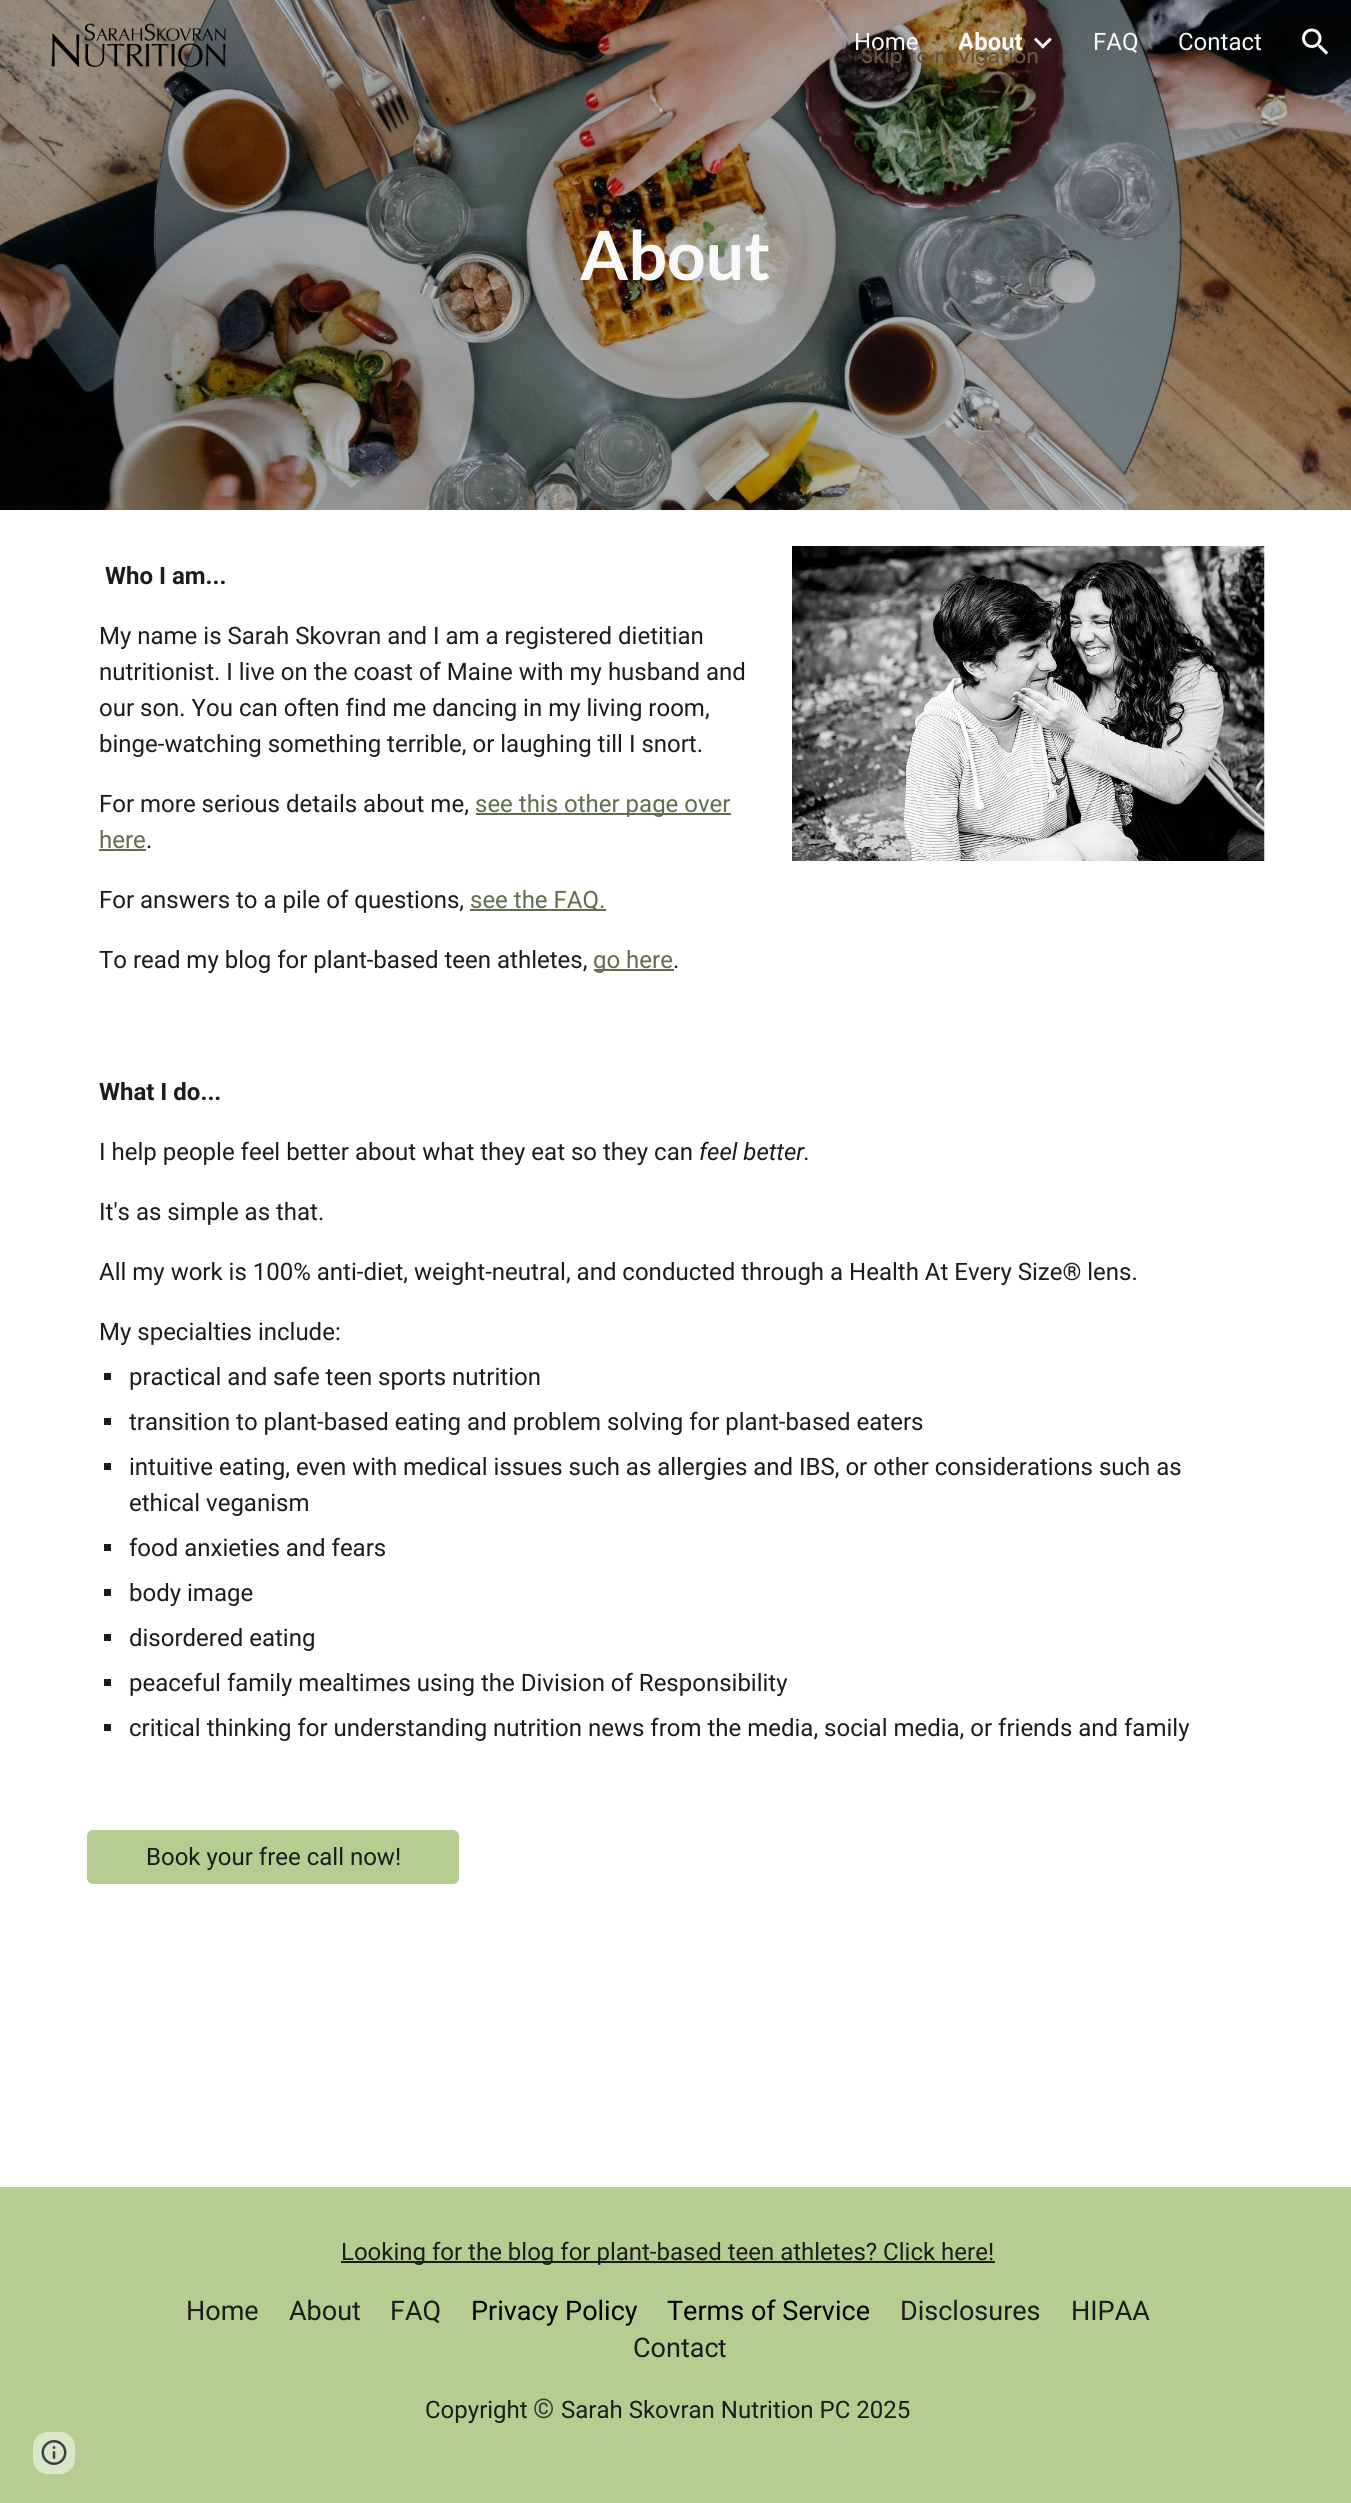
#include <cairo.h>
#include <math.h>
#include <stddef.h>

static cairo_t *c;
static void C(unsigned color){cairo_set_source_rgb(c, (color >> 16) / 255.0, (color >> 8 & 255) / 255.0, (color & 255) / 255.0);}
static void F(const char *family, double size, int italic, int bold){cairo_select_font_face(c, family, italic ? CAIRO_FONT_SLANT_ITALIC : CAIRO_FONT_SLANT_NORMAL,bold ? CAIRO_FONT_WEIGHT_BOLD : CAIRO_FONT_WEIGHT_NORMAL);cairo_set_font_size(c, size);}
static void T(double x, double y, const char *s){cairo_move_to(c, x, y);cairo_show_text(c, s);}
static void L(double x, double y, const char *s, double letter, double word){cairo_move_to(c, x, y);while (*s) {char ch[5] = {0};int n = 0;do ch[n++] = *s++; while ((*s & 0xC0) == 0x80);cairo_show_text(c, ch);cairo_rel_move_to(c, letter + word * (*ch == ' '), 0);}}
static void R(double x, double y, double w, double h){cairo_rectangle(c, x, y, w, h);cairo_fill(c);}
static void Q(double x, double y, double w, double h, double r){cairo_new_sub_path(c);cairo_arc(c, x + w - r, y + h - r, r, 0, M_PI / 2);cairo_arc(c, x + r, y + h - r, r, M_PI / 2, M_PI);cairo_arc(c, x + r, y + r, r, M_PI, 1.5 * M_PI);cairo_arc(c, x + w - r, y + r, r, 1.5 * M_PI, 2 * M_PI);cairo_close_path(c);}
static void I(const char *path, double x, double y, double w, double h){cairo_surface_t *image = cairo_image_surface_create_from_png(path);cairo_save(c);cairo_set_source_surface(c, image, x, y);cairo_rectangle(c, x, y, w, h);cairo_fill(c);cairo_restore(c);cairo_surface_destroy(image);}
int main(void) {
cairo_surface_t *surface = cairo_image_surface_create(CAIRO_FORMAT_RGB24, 1351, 2503);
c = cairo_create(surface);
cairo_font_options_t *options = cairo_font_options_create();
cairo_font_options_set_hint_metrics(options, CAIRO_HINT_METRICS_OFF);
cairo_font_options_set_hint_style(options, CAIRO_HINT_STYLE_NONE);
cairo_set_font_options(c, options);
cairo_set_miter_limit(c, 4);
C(0xffffff);
cairo_paint(c);
I("4.png",0,0,1351,510);
I("1.png",51,23,175,44);
F("Roboto",24,0,0);
C(0xf9f9f9);
T(854,50,"Home");
cairo_save(c);
cairo_rectangle(c,959,29,64,28);
cairo_clip(c);
F("Roboto",24,0,1);
T(958,50,"About");
cairo_restore(c);
I("2.png",1034,37,18,12);
T(1093,50,"FAQ");
T(1178,50,"Contact");
I("3.png",1302,28,27,27);
F("Lato",68,0,1);
T(580,280,"About");
F("Roboto",24,0,1);
C(0x1c1c1c);
T(105,584,"Who I am...");
F("Roboto",24,0,0);
T(99,644,"My name is Sarah Skovran and I am a registered dietitian");
T(99,680,"nutritionist. I live on the coast of Maine with my husband and");
T(99,716,"our son. You can often find me dancing in my living room,");
T(99,752,"binge-watching something terrible, or laughing till I snort.");
T(99,812,"For more serious details about me,");
C(0x616d4d);
R(476,813,255,2);
T(475,812,"see this other page over");
T(99,848,"here");
R(99,849,47,2);
C(0x1c1c1c);
T(146,848,".");
T(99,908,"For answers to a pile of questions,");
C(0x616d4d);
R(470,909,136,2);
T(470,908,"see the FAQ.");
C(0x1c1c1c);
T(99,968,"To read my blog for plant-based teen athletes,");
C(0x616d4d);
R(594,969,80,2);
T(593,968,"go here");
C(0x1c1c1c);
T(673,968,".");
I("5.png",792,546,473,315);
F("Roboto",24,0,1);
T(99,1100,"What I do...");
F("Roboto",24,0,0);
T(99,1160,"I help people feel better about what they eat so they can");
F("Roboto",24,1,0);
T(699,1160,"feel better.");
F("Roboto",24,0,0);
T(99,1220,"It's as simple as that.");
T(99,1280,"All my work is 100% anti-diet, weight-neutral, and conducted through a Health At Every Size® lens.");
T(99,1340,"My specialties include:");
R(104,1373,7,7);
T(129,1385,"practical and safe teen sports nutrition");
R(104,1418,7,7);
T(129,1430,"transition to plant-based eating and problem solving for plant-based eaters");
R(104,1463,7,7);
T(129,1475,"intuitive eating, even with medical issues such as allergies and IBS, or other considerations such as");
T(129,1511,"ethical veganism");
R(104,1544,7,7);
T(129,1556,"food anxieties and fears");
R(104,1589,7,7);
T(129,1601,"body image");
R(104,1634,7,7);
T(129,1646,"disordered eating");
R(104,1679,7,7);
T(129,1691,"peaceful family mealtimes using the Division of Responsibility");
R(104,1724,7,7);
T(129,1736,"critical thinking for understanding nutrition news from the media, social media, or friends and family");
C(0xb5cd90);
Q(88,1831,370,52,5);
cairo_fill_preserve(c);
cairo_stroke(c);
C(0x1c1c1c);
T(146,1865,"Book your free call now!");
C(0xb5cd90);
R(0,2187,1351,316);
C(0x1c1c1c);
R(341,2261,654,2);
T(341,2260,"Looking for the blog for plant-based teen athletes? Click here!");
F("Roboto",27,0,0);
T(186,2320,"Home");
T(289,2320,"About");
T(390,2320,"FAQ");
C(0x000000);
T(471,2320,"Privacy Policy");
T(667,2320,"Terms of Service");
C(0x1c1c1c);
T(900,2320,"Disclosures");
T(1071,2320,"HIPAA");
T(633,2357,"Contac");
F("Roboto",26,0,0);
T(718,2357,"t");
F("Roboto",24,0,0);
T(425,2418,"Copyright");
F("Roboto",27,0,0);
C(0x3a3a3a);
T(533,2418,"©");
F("Roboto",24,0,0);
C(0x1c1c1c);
T(561,2418,"Sarah Skovran Nutrition PC 2025");
C(0xdae6c8);
Q(33,2432,42,42,15);
cairo_fill(c);
I("6.png",41,2440,26,25);
F("Google Sans Medium",21,0,0);
C(0x66523a);
L(861,63,"Skip to navigation",.25,0);
cairo_surface_write_to_png(surface, "o.png");
cairo_font_options_destroy(options);
cairo_destroy(c);
cairo_surface_destroy(surface);
return 0;
}
